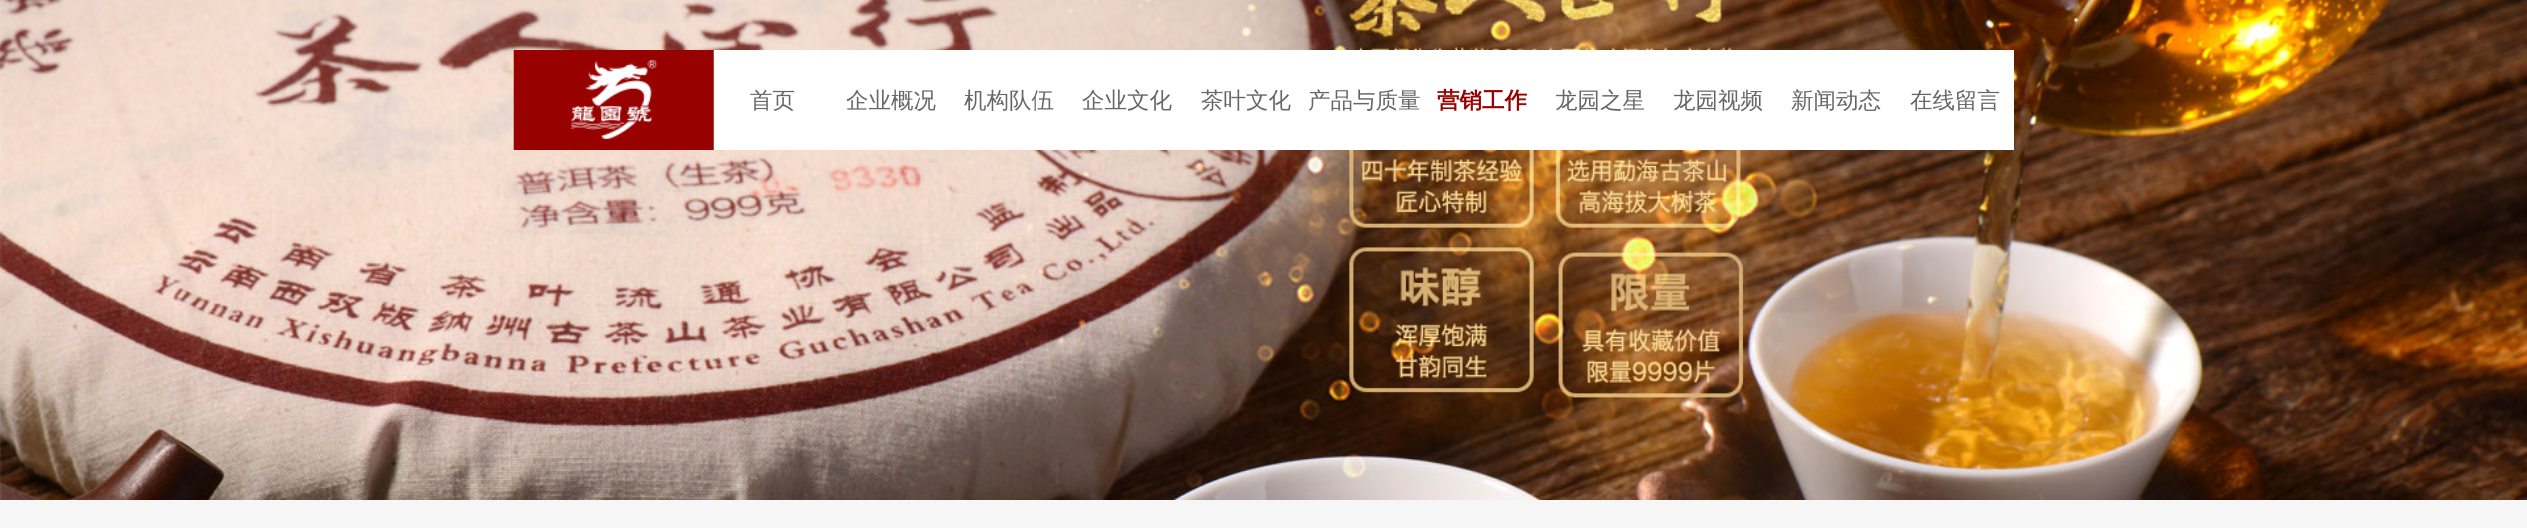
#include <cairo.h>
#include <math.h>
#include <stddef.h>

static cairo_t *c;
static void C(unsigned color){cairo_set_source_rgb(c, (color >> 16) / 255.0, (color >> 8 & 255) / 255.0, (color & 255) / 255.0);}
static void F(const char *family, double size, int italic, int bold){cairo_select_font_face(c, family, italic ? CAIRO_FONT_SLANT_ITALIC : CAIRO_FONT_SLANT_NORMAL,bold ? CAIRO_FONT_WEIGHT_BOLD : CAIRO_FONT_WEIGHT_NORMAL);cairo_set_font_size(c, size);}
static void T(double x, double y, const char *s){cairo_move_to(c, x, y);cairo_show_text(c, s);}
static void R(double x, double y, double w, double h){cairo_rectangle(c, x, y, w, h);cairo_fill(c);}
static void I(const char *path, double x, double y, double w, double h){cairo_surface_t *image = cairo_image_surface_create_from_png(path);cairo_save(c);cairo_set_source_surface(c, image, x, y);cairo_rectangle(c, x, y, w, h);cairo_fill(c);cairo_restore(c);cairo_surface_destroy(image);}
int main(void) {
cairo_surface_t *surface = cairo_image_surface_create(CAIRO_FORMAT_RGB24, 2527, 528);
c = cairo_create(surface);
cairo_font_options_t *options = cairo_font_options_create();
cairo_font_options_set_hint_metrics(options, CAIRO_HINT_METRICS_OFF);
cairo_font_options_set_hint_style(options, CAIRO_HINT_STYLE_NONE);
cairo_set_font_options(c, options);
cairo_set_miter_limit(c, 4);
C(0xf6f6f6);
cairo_paint(c);
I("1.png",0,0,2527,500);
C(0xffffff);
R(713,50,1301,100);
I("2.png",513,50,201,100);
F("WenQuanYi Zen Hei Medium",22.5,0,0);
C(0x666666);
T(750,108,"首页");
T(846,108,"企业概况");
T(964,108,"机构队伍");
T(1082,108,"企业文化");
T(1201,108,"茶叶文化");
T(1308,108,"产品与质量");
F("WenQuanYi Zen Hei",22.5,0,1);
C(0x970100);
T(1437,108,"营销工作");
F("WenQuanYi Zen Hei Medium",22.5,0,0);
C(0x666666);
T(1555,108,"龙园之星");
T(1673,108,"龙园视频");
T(1791,108,"新闻动态");
T(1910,108,"在线留言");
cairo_surface_write_to_png(surface, "o.png");
cairo_font_options_destroy(options);
cairo_destroy(c);
cairo_surface_destroy(surface);
return 0;
}
